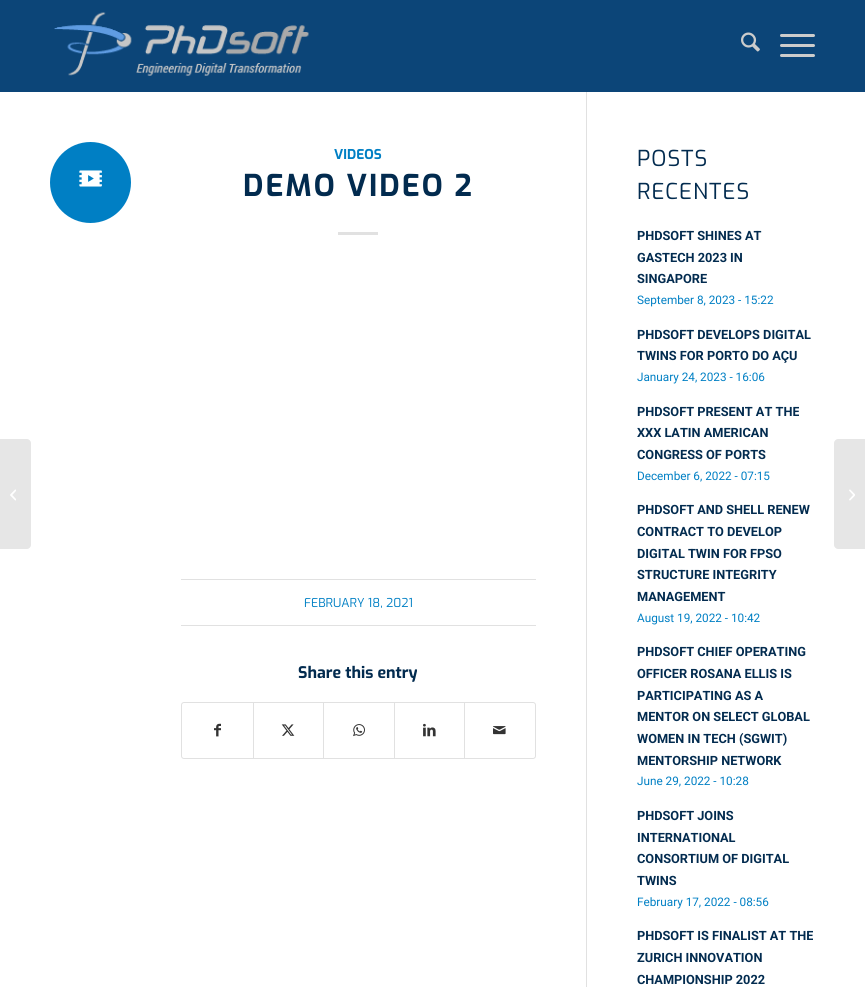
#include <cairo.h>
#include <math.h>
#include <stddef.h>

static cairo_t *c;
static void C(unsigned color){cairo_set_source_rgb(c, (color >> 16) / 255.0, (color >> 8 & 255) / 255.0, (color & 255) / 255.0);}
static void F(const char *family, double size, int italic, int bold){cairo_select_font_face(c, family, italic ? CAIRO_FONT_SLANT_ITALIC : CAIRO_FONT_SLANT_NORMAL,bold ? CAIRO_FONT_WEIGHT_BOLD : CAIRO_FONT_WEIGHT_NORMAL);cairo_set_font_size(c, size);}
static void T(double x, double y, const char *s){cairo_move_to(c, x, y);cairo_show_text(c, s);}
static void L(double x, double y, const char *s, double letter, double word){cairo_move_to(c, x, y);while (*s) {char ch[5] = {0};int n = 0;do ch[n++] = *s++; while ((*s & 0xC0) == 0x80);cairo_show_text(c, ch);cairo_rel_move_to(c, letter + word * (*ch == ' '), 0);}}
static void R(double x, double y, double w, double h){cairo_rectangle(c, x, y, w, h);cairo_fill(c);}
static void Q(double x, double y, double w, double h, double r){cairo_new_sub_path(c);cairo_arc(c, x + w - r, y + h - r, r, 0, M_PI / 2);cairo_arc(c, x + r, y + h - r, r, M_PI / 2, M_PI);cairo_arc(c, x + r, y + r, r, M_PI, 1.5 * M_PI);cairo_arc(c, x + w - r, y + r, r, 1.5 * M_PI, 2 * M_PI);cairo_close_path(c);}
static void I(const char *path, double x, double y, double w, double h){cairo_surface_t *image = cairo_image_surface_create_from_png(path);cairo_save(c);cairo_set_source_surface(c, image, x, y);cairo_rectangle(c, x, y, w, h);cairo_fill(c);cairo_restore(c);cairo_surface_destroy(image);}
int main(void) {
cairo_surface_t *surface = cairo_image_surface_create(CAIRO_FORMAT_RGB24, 865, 987);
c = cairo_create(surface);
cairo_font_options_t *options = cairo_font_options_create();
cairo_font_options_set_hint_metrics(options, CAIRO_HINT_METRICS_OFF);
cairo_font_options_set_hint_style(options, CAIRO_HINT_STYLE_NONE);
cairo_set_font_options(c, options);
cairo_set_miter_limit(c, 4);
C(0xffffff);
cairo_paint(c);
C(0x0c4578);
R(0,0,865,92);
I("1.png",54,12,255,64);
I("2.png",741,32,19,20);
C(0xcccccc);
Q(780,44,35,3,1.5);
cairo_fill(c);
Q(780,34,35,3,1.5);
cairo_fill(c);
Q(780,54,35,3,1.5);
cairo_fill(c);
C(0xe6e6e6);
cairo_new_path(c);
cairo_move_to(c,0,439);
cairo_line_to(c,27,439);
cairo_curve_to(c,29,439,31,441,31,443);
cairo_line_to(c,31,545);
cairo_curve_to(c,31,547,29,549,27,549);
cairo_line_to(c,0,549);
cairo_close_path(c);
cairo_fill(c);
I("3.png",10,489,6,12);
C(0x007fc4);
cairo_arc(c,90.5,182.5,40.5,0,2 * M_PI);
cairo_fill(c);
I("4.png",79,170,23,17);
F("Exo",13.5,0,1);
T(334,159,"VIDEOS");
F("Exo",30,0,1);
C(0x022b4f);
L(243,196,"DEMO VIDEO 2",2,0);
C(0xe1e1e1);
R(338,232,40,3);
R(181,579,355,1);
R(181,625,355,1);
F("Exo",12.25,0,0);
C(0x007fc4);
T(304,607,"FEBRUARY 18, 2021");
F("Exo",16,0,1);
C(0x022b4f);
T(298,678,"Share this entry");
Q(181.5,702.5,354,56,2.5);
C(0xe1e1e1);
cairo_set_line_width(c,1);
cairo_stroke(c);
I("5.png",214,723,7,14);
R(253,703,1,55);
I("6.png",281,724,14,12);
R(323,703,1,55);
I("7.png",353,724,12,13);
R(394,703,1,55);
I("8.png",423,723,13,14);
R(464,703,1,55);
I("9.png",493,726,13,9);
R(586,92,1,895);
F("Exo",22,0,0);
C(0x022b4f);
L(637,166,"POSTS",1,0);
L(637,199,"RECENTES",1,0);
F("Roboto",12.75,0,1);
T(637,240,"PHDSOFT SHINES AT");
T(637,262,"GASTECH 2023 IN");
T(637,283,"SINGAPORE");
F("Roboto",11.75,0,0);
C(0x007fc4);
T(637,304,"September 8, 2023 - 15:22");
F("Roboto",12.75,0,1);
C(0x022b4f);
T(637,339,"PHDSOFT DEVELOPS DIGITAL");
T(637,360,"TWINS FOR PORTO DO AÇU");
F("Roboto",11.75,0,0);
C(0x007fc4);
T(637,381,"January 24, 2023 - 16:06");
F("Roboto",12.75,0,1);
C(0x022b4f);
T(637,416,"PHDSOFT PRESENT AT THE");
T(637,437,"XXX LATIN AMERICAN");
T(637,459,"CONGRESS OF PORTS");
F("Roboto",11.75,0,0);
C(0x007fc4);
T(637,480,"December 6, 2022 - 07:15");
F("Roboto",12.75,0,1);
C(0x022b4f);
T(637,514,"PHDSOFT AND SHELL RENEW");
T(637,536,"CONTRACT TO DEVELOP");
T(637,558,"DIGITAL TWIN FOR FPSO");
T(637,579,"STRUCTURE INTEGRITY");
T(637,601,"MANAGEMENT");
F("Roboto",11.75,0,0);
C(0x007fc4);
T(637,622,"August 19, 2022 - 10:42");
F("Roboto",12.75,0,1);
C(0x022b4f);
T(637,656,"PHDSOFT CHIEF OPERATING");
T(637,678,"OFFICER ROSANA ELLIS IS");
T(637,700,"PARTICIPATING AS A");
T(637,721,"MENTOR ON SELECT GLOBAL");
T(637,743,"WOMEN IN TECH (SGWIT)");
T(637,765,"MENTORSHIP NETWORK");
F("Roboto",11.75,0,0);
C(0x007fc4);
T(637,785,"June 29, 2022 - 10:28");
F("Roboto",12.75,0,1);
C(0x022b4f);
T(637,820,"PHDSOFT JOINS");
T(637,842,"INTERNATIONAL");
T(637,863,"CONSORTIUM OF DIGITAL");
T(637,885,"TWINS");
F("Roboto",11.75,0,0);
C(0x007fc4);
T(637,906,"February 17, 2022 - 08:56");
F("Roboto",12.75,0,1);
C(0x022b4f);
T(637,940,"PHDSOFT IS FINALIST AT THE");
T(637,962,"ZURICH INNOVATION");
T(637,984,"CHAMPIONSHIP 2022");
C(0xe6e6e6);
cairo_new_path(c);
cairo_move_to(c,838,439);
cairo_line_to(c,865,439);
cairo_line_to(c,865,549);
cairo_line_to(c,838,549);
cairo_curve_to(c,836,549,834,547,834,545);
cairo_line_to(c,834,443);
cairo_curve_to(c,834,441,836,439,838,439);
cairo_close_path(c);
cairo_fill(c);
I("10.png",849,489,6,12);
cairo_surface_write_to_png(surface, "o.png");
cairo_font_options_destroy(options);
cairo_destroy(c);
cairo_surface_destroy(surface);
return 0;
}
